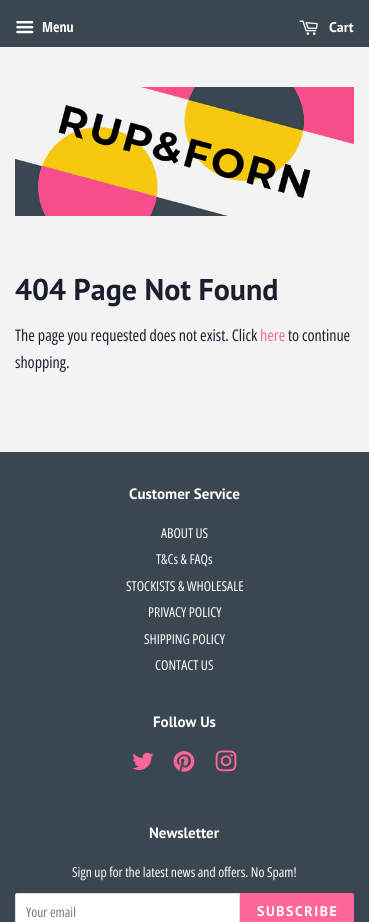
#include <cairo.h>
#include <math.h>
#include <stddef.h>

static cairo_t *c;
static void C(unsigned color){cairo_set_source_rgb(c, (color >> 16) / 255.0, (color >> 8 & 255) / 255.0, (color & 255) / 255.0);}
static void F(const char *family, double size, int italic, int bold){cairo_select_font_face(c, family, italic ? CAIRO_FONT_SLANT_ITALIC : CAIRO_FONT_SLANT_NORMAL,bold ? CAIRO_FONT_WEIGHT_BOLD : CAIRO_FONT_WEIGHT_NORMAL);cairo_set_font_size(c, size);}
static void T(double x, double y, const char *s){cairo_move_to(c, x, y);cairo_show_text(c, s);}
static void L(double x, double y, const char *s, double letter, double word){cairo_move_to(c, x, y);while (*s) {char ch[5] = {0};int n = 0;do ch[n++] = *s++; while ((*s & 0xC0) == 0x80);cairo_show_text(c, ch);cairo_rel_move_to(c, letter + word * (*ch == ' '), 0);}}
static void R(double x, double y, double w, double h){cairo_rectangle(c, x, y, w, h);cairo_fill(c);}
static void I(const char *path, double x, double y, double w, double h){cairo_surface_t *image = cairo_image_surface_create_from_png(path);cairo_save(c);cairo_set_source_surface(c, image, x, y);cairo_rectangle(c, x, y, w, h);cairo_fill(c);cairo_restore(c);cairo_surface_destroy(image);}
int main(void) {
cairo_surface_t *surface = cairo_image_surface_create(CAIRO_FORMAT_RGB24, 369, 922);
c = cairo_create(surface);
cairo_font_options_t *options = cairo_font_options_create();
cairo_font_options_set_hint_metrics(options, CAIRO_HINT_METRICS_OFF);
cairo_font_options_set_hint_style(options, CAIRO_HINT_STYLE_NONE);
cairo_set_font_options(c, options);
cairo_set_miter_limit(c, 4);
C(0xf3f3f3);
cairo_paint(c);
C(0x3a4750);
R(0,0,369,47);
I("1.png",16,21,18,13);
F("Open Sans Condensed",14,0,1);
C(0xffffff);
T(42,32,"Menu");
I("2.png",299,20,19,15);
F("PT Sans",14,0,1);
T(329,32,"Cart");
I("3.png",15,87,339,129);
F("PT Sans",30,0,1);
C(0x1b1e2f);
T(15,300,"404 Page Not Found");
F("Open Sans Condensed",16,0,0);
T(15,341,"The page you requested does not exist. Click");
C(0xff6699);
T(260,341,"here");
C(0x1b1e2f);
T(288,341,"to continue");
T(15,368,"shopping.");
C(0x3a4750);
R(0,452,369,470);
F("PT Sans",15,0,1);
C(0xffffff);
T(129,499,"Customer Service");
F("Open Sans Condensed",13.6,0,0);
T(161,538,"ABOUT US");
T(156,564,"T&Cs & FAQs");
T(126,591,"STOCKISTS & WHOLESALE");
T(148,617,"PRIVACY POLICY");
T(144,644,"SHIPPING POLICY");
T(155,670,"CONTACT US");
F("PT Sans",15,0,1);
T(153,727,"Follow Us");
I("4.png",132,752,22,18);
I("5.png",173,751,22,21);
I("6.png",215,750,22,22);
T(149,838,"Newsletter");
F("Open Sans Condensed",13.6,0,0);
T(72,877,"Sign up for the latest news and offers. No Spam!");
cairo_new_path(c);
cairo_move_to(c,17,893);
cairo_line_to(c,240,893);
cairo_line_to(c,240,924);
cairo_line_to(c,17,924);
cairo_curve_to(c,16,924,15,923,15,922);
cairo_line_to(c,15,895);
cairo_curve_to(c,15,894,16,893,17,893);
cairo_close_path(c);
cairo_fill(c);
cairo_new_path(c);
cairo_move_to(c,17,893.5);
cairo_line_to(c,239.5,893.5);
cairo_line_to(c,239.5,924.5);
cairo_line_to(c,17,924.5);
cairo_curve_to(c,16,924.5,15.5,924,15.5,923);
cairo_line_to(c,15.5,895);
cairo_curve_to(c,15.5,894,16,893.5,17,893.5);
cairo_close_path(c);
cairo_set_source_rgba(c,0.106,0.118,0.184,0.15);
cairo_set_line_width(c,1);
cairo_stroke(c);
C(0x757575);
T(26,917,"Your email");
C(0xff6699);
cairo_new_path(c);
cairo_move_to(c,240,893);
cairo_line_to(c,352,893);
cairo_curve_to(c,353,893,354,894,354,895);
cairo_line_to(c,354,922);
cairo_curve_to(c,354,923,353,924,352,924);
cairo_line_to(c,240,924);
cairo_close_path(c);
cairo_fill(c);
F("PT Sans",14,0,1);
C(0xffffff);
L(257,916,"SUBSCRIBE",1.5,0);
cairo_surface_write_to_png(surface, "o.png");
cairo_font_options_destroy(options);
cairo_destroy(c);
cairo_surface_destroy(surface);
return 0;
}
